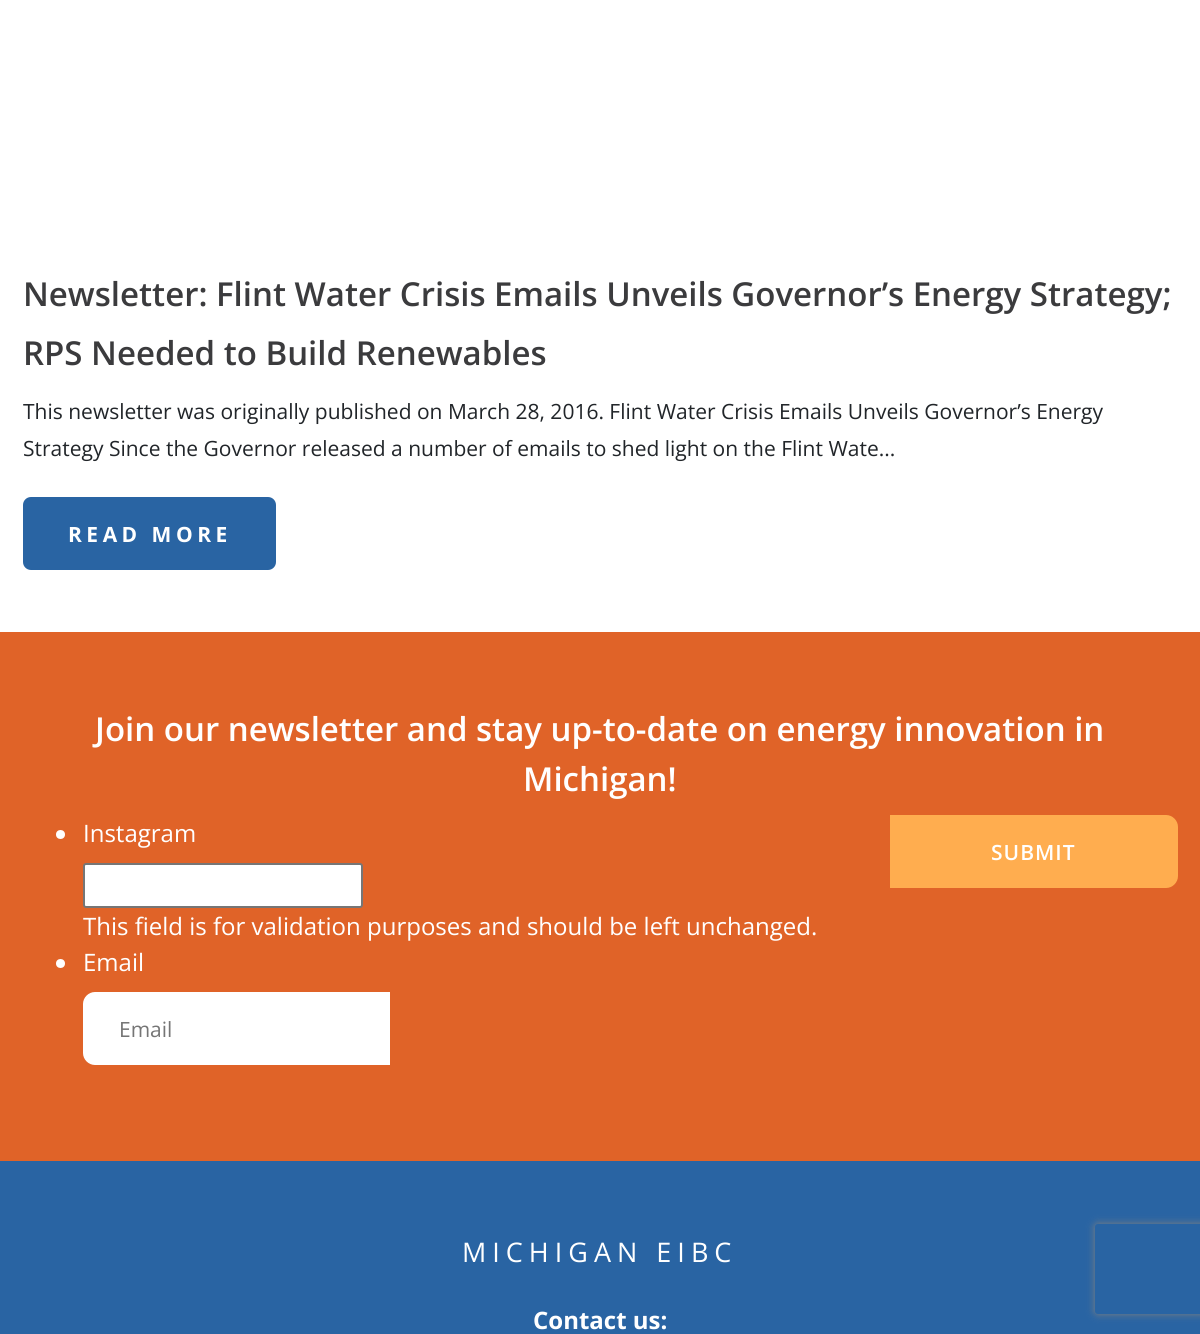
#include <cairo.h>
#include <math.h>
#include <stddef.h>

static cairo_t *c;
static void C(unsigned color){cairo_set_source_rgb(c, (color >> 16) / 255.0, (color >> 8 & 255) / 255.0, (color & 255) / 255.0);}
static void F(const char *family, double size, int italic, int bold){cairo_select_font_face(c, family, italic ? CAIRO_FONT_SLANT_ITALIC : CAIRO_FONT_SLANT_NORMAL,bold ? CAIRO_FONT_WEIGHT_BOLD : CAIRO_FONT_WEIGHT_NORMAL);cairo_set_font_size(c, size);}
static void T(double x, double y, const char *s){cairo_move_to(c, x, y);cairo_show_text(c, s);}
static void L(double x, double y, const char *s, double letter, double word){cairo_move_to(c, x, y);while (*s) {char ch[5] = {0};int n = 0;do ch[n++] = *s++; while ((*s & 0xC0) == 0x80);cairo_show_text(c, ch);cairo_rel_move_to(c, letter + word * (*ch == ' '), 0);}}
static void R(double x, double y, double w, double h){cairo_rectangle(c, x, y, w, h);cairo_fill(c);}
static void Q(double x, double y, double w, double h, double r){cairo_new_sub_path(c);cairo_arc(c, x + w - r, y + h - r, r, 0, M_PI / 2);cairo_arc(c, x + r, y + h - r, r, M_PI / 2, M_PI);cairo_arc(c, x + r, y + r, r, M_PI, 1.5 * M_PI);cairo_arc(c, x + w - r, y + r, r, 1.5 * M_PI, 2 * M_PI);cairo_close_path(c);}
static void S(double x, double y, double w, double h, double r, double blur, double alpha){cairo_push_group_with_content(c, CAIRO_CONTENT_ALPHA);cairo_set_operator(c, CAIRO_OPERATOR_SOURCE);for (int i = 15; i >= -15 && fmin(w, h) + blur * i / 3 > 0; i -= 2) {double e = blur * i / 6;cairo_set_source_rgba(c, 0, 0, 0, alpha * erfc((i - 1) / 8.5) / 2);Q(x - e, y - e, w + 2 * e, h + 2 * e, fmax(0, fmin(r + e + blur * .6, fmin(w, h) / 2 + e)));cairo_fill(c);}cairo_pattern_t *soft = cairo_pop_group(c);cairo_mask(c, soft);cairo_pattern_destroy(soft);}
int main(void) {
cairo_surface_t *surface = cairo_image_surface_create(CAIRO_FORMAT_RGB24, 1200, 1334);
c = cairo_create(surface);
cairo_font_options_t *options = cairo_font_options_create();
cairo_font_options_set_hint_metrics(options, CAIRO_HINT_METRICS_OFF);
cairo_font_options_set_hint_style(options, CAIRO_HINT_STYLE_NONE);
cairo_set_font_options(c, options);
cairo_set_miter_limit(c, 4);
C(0xffffff);
cairo_paint(c);
F("Open Sans SemiBold",33,0,0);
C(0x3b3b3d);
T(23,306,"Newsletter: Flint Water Crisis Emails Unveils Governor’s Energy Strategy;");
T(23,365,"RPS Needed to Build Renewables");
F("Open Sans",21,0,0);
C(0x212529);
T(23,419,"This newsletter was originally published on March 28, 2016. Flint Water Crisis Emails Unveils Governor’s Energy");
T(23,456,"Strategy Since the Governor released a number of emails to shed light on the Flint Wate...");
C(0x2964a3);
Q(23,497,253,73,8);
cairo_fill(c);
F("Open Sans",21,0,1);
C(0xffffff);
L(68,542,"READ MORE",4.5,0);
C(0xe06328);
R(0,632,1200,529);
F("Open Sans SemiBold",33,0,0);
C(0xffffff);
T(95,741,"Join our newsletter and stay up-to-date on energy innovation in");
T(523,791,"Michigan!");
cairo_new_path(c);
cairo_arc(c,60.5,834.5,4.5,0,2 * M_PI);
cairo_fill(c);
F("Open Sans",24,0,0);
T(83,842,"Instagram");
Q(84,864,278,43,2);
cairo_fill_preserve(c);
C(0x767676);
cairo_stroke(c);
C(0xffffff);
T(83,935,"This field is for validation purposes and should be left unchanged.");
cairo_new_path(c);
cairo_arc(c,60.5,963.5,4.5,0,2 * M_PI);
cairo_fill(c);
T(83,971,"Email");
cairo_new_path(c);
cairo_move_to(c,95,992);
cairo_line_to(c,390,992);
cairo_line_to(c,390,1065);
cairo_line_to(c,95,1065);
cairo_curve_to(c,88.5,1065,83,1059.5,83,1053);
cairo_line_to(c,83,1004);
cairo_curve_to(c,83,997.5,88.5,992,95,992);
cairo_close_path(c);
cairo_fill(c);
F("Open Sans",21,0,0);
C(0x757575);
T(119,1037,"Email");
C(0xffad4f);
cairo_new_path(c);
cairo_move_to(c,890,815);
cairo_line_to(c,1166,815);
cairo_curve_to(c,1172.5,815,1178,820.5,1178,827);
cairo_line_to(c,1178,876);
cairo_curve_to(c,1178,882.5,1172.5,888,1166,888);
cairo_line_to(c,890,888);
cairo_close_path(c);
cairo_fill(c);
F("Open Sans SemiBold",21,0,0);
C(0xffffff);
L(991,860,"SUBMIT",1,0);
C(0x2964a3);
R(0,1161,1200,173);
F("Open Sans",27,0,0);
C(0xffffff);
L(462,1262,"MICHIGAN EIBC",6,0);
F("Open Sans",24,0,1);
T(533,1329,"Contact us:");
cairo_save(c);
cairo_set_fill_rule(c,CAIRO_FILL_RULE_EVEN_ODD);
cairo_new_path(c);
cairo_move_to(c,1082,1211);
cairo_line_to(c,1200,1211);
cairo_line_to(c,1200,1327);
cairo_line_to(c,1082,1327);
cairo_close_path(c);
cairo_move_to(c,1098,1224);
cairo_line_to(c,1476,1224);
cairo_curve_to(c,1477.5,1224,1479,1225.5,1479,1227);
cairo_line_to(c,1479,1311);
cairo_curve_to(c,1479,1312.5,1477.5,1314,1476,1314);
cairo_line_to(c,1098,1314);
cairo_curve_to(c,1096.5,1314,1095,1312.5,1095,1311);
cairo_line_to(c,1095,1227);
cairo_curve_to(c,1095,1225.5,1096.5,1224,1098,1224);
cairo_close_path(c);
cairo_clip(c);
C(0x808080);
S(1095,1224,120,90,3,4,1);
cairo_restore(c);
cairo_surface_write_to_png(surface, "o.png");
cairo_font_options_destroy(options);
cairo_destroy(c);
cairo_surface_destroy(surface);
return 0;
}
